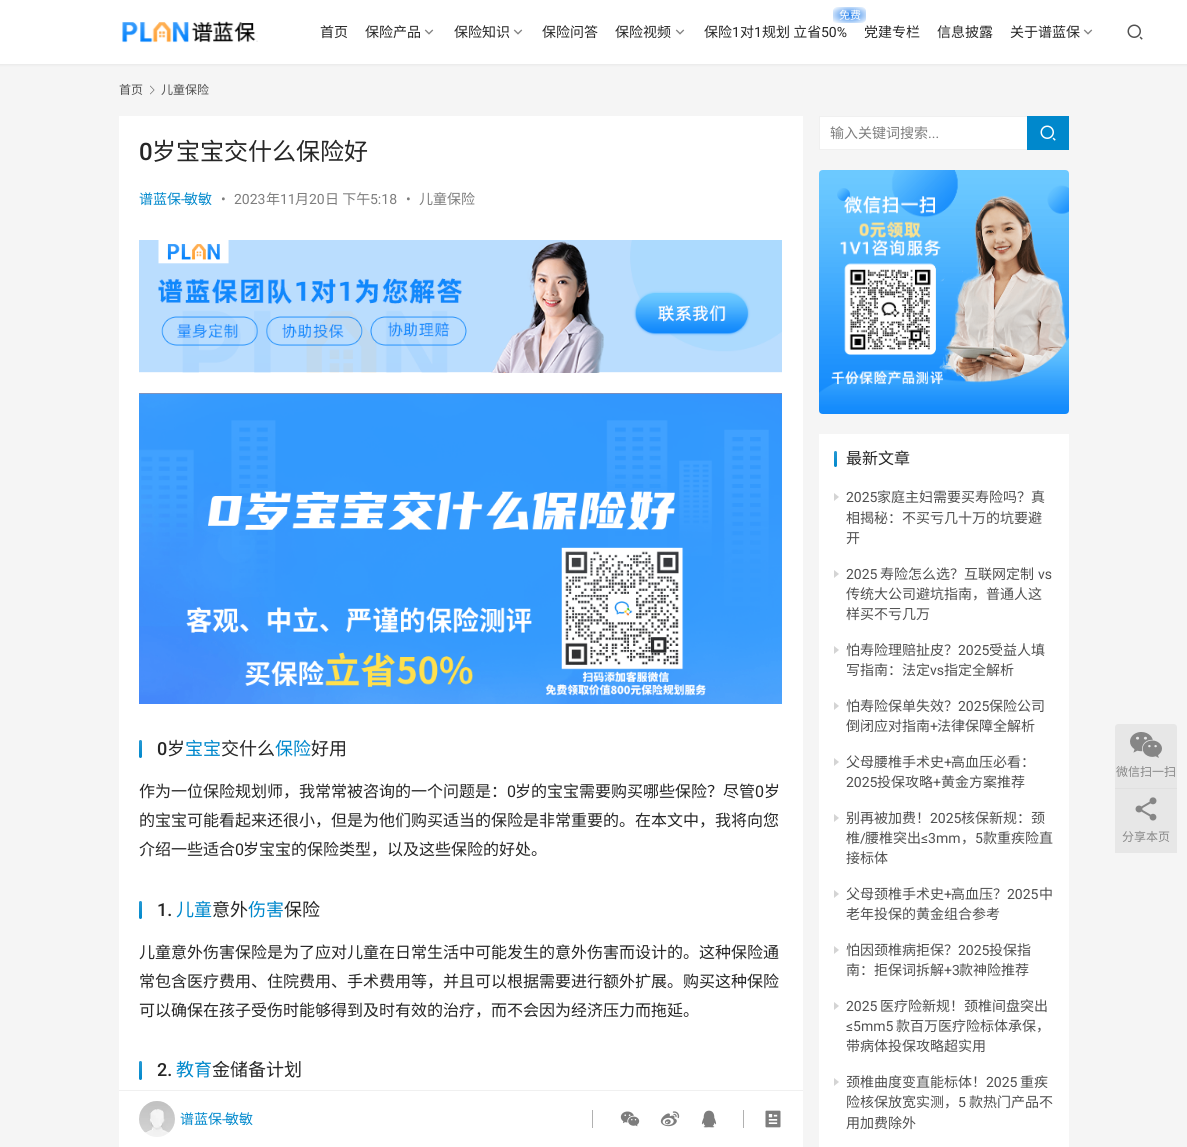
#include <cairo.h>
#include <math.h>
#include <stddef.h>

static cairo_t *c;
static void C(unsigned color){cairo_set_source_rgb(c, (color >> 16) / 255.0, (color >> 8 & 255) / 255.0, (color & 255) / 255.0);}
static void F(const char *family, double size, int italic, int bold){cairo_select_font_face(c, family, italic ? CAIRO_FONT_SLANT_ITALIC : CAIRO_FONT_SLANT_NORMAL,bold ? CAIRO_FONT_WEIGHT_BOLD : CAIRO_FONT_WEIGHT_NORMAL);cairo_set_font_size(c, size);}
static void T(double x, double y, const char *s){cairo_move_to(c, x, y);cairo_show_text(c, s);}
static void R(double x, double y, double w, double h){cairo_rectangle(c, x, y, w, h);cairo_fill(c);}
static void Q(double x, double y, double w, double h, double r){cairo_new_sub_path(c);cairo_arc(c, x + w - r, y + h - r, r, 0, M_PI / 2);cairo_arc(c, x + r, y + h - r, r, M_PI / 2, M_PI);cairo_arc(c, x + r, y + r, r, M_PI, 1.5 * M_PI);cairo_arc(c, x + w - r, y + r, r, 1.5 * M_PI, 2 * M_PI);cairo_close_path(c);}
static void S(double x, double y, double w, double h, double r, double blur, double alpha){cairo_push_group_with_content(c, CAIRO_CONTENT_ALPHA);cairo_set_operator(c, CAIRO_OPERATOR_SOURCE);for (int i = 15; i >= -15 && fmin(w, h) + blur * i / 3 > 0; i -= 2) {double e = blur * i / 6;cairo_set_source_rgba(c, 0, 0, 0, alpha * erfc((i - 1) / 8.5) / 2);Q(x - e, y - e, w + 2 * e, h + 2 * e, fmax(0, fmin(r + e + blur * .6, fmin(w, h) / 2 + e)));cairo_fill(c);}cairo_pattern_t *soft = cairo_pop_group(c);cairo_mask(c, soft);cairo_pattern_destroy(soft);}
static void I(const char *path, double x, double y, double w, double h){cairo_surface_t *image = cairo_image_surface_create_from_png(path);cairo_save(c);cairo_set_source_surface(c, image, x, y);cairo_rectangle(c, x, y, w, h);cairo_fill(c);cairo_restore(c);cairo_surface_destroy(image);}
int main(void) {
cairo_surface_t *surface = cairo_image_surface_create(CAIRO_FORMAT_RGB24, 1187, 1147);
c = cairo_create(surface);
cairo_font_options_t *options = cairo_font_options_create();
cairo_font_options_set_hint_metrics(options, CAIRO_HINT_METRICS_OFF);
cairo_font_options_set_hint_style(options, CAIRO_HINT_STYLE_NONE);
cairo_set_font_options(c, options);
cairo_set_miter_limit(c, 4);
cairo_pattern_t *gradient;
C(0xf5f5f5);
cairo_paint(c);
C(0x262626);
S(-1,-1,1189,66,0,1.5,.06);
C(0xffffff);
R(0,0,1187,64);
I("1.png",122,21,136,22);
F("Noto Sans CJK SC",14,0,0);
C(0x262626);
T(320,37,"首页");
T(365,37,"保险产品");
I("2.png",424,29,10,6);
T(454,37,"保险知识");
I("2.png",513,29,10,6);
T(542,37,"保险问答");
T(615,37,"保险视频");
I("2.png",675,29,10,6);
gradient = cairo_pattern_create_radial(0,0,0,0,0,1);
cairo_pattern_set_matrix(gradient, &(cairo_matrix_t){1.0 / 23, 0, 0, 1.0 / 11, -1.0 * 850 / 23, -1.0 * 15 / 11});
cairo_pattern_add_color_stop_rgba(gradient,0,0.149,0.502,0.922,1);
cairo_pattern_add_color_stop_rgba(gradient,1,1,1,1,1);
cairo_set_source(c,gradient);
cairo_pattern_destroy(gradient);
cairo_new_path(c);
cairo_move_to(c,837,7);
cairo_line_to(c,862,7);
cairo_curve_to(c,864,7,866,9,866,11);
cairo_line_to(c,866,19);
cairo_curve_to(c,866,21,864,23,862,23);
cairo_line_to(c,833,23);
cairo_line_to(c,833,11);
cairo_curve_to(c,833,9,835,7,837,7);
cairo_close_path(c);
cairo_fill(c);
F("Noto Sans CJK SC",11,0,0);
C(0xffffff);
T(839,19,"免费");
F("Noto Sans CJK SC",14,0,0);
C(0x262626);
T(704,37,"保险");
F("Roboto",14,0,0);
T(732,37,"1");
F("Noto Sans CJK SC",14,0,0);
T(740,37,"对");
F("Roboto",14,0,0);
T(754,37,"1");
F("Noto Sans CJK SC",14,0,0);
T(762,37,"规划 立省");
F("Roboto",14,0,0);
T(821,37,"50%");
F("Noto Sans CJK SC",14,0,0);
T(864,37,"党建专栏");
T(937,37,"信息披露");
T(1010,37,"关于谱蓝保");
I("2.png",1083,29,10,6);
I("3.png",1127,24,16,16);
F("Noto Sans CJK SC",12,0,0);
C(0x4f4f4f);
T(119,94,"首页");
I("4.png",150,85,5,10);
T(161,94,"儿童保险");
C(0xffffff);
R(119,116,684,974);
F("Roboto Medium",24,0,0);
C(0x262626);
T(139,160,"0");
F("Noto Sans CJK SC",24,0,0);
T(152,160,"岁宝宝交什么保险好");
F("Noto Sans CJK SC",14,0,0);
C(0x0088cc);
T(139,204,"谱蓝保");
F("Roboto",14,0,0);
T(181,204,"-");
F("Noto Sans CJK SC",14,0,0);
T(184,204,"敏敏");
F("Roboto",14,0,0);
C(0x7d7d7d);
T(221,204,"•");
T(234,204,"2023");
F("Noto Sans CJK SC",14,0,0);
T(266,204,"年");
F("Roboto",14,0,0);
T(280,204,"11");
F("Noto Sans CJK SC",14,0,0);
T(295,204,"月");
F("Roboto",14,0,0);
T(309,204,"20");
F("Noto Sans CJK SC",14,0,0);
T(325,204,"日 下午");
F("Roboto",14,0,0);
T(370,204,"5:18");
T(406,204,"•");
F("Noto Sans CJK SC",14,0,0);
T(419,204,"儿童保险");
I("5.png",139,240,643,133);
I("6.png",139,393,643,311);
C(0x0088cc);
Q(139,740,3,18,1.5);
cairo_fill(c);
gradient = cairo_pattern_create_linear(141,740,141,758);
cairo_pattern_add_color_stop_rgba(gradient,0,1,1,1,.15);
cairo_pattern_add_color_stop_rgba(gradient,1,1,1,1,0);
cairo_set_source(c,gradient);
cairo_pattern_destroy(gradient);
Q(139,740,3,18,1.5);
cairo_fill(c);
F("Roboto Medium",18,0,0);
C(0x262626);
T(157,755,"0");
F("Noto Sans CJK SC",18,0,0);
T(167,755,"岁");
C(0x0088cc);
T(185,755,"宝宝");
C(0x262626);
T(221,755,"交什么");
C(0x0088cc);
T(275,755,"保险");
C(0x262626);
T(311,755,"好用");
F("Noto Sans CJK SC",16,0,0);
T(139,797,"作为一位保险规划师，我常常被咨询的一个问题是：");
F("Roboto",16,0,0);
T(507,797,"0");
F("Noto Sans CJK SC",16,0,0);
T(515,797,"岁的宝宝需要购买哪些保险？尽管");
F("Roboto",16,0,0);
T(755,797,"0");
F("Noto Sans CJK SC",16,0,0);
T(764,797,"岁");
T(139,826,"的宝宝可能看起来还很小，但是为他们购买适当的保险是非常重要的。在本文中，我将向您");
T(139,855,"介绍一些适合");
F("Roboto",16,0,0);
T(235,855,"0");
F("Noto Sans CJK SC",16,0,0);
T(243,855,"岁宝宝的保险类型，以及这些保险的好处。");
C(0x0088cc);
Q(139,901,3,18,1.5);
cairo_fill(c);
gradient = cairo_pattern_create_linear(141,901,141,919);
cairo_pattern_add_color_stop_rgba(gradient,0,1,1,1,.15);
cairo_pattern_add_color_stop_rgba(gradient,1,1,1,1,0);
cairo_set_source(c,gradient);
cairo_pattern_destroy(gradient);
Q(139,901,3,18,1.5);
cairo_fill(c);
F("Roboto Medium",18,0,0);
C(0x262626);
T(157,916,"1.");
F("Noto Sans CJK SC",18,0,0);
C(0x0088cc);
T(176,916,"儿童");
C(0x262626);
T(212,916,"意外");
C(0x0088cc);
T(248,916,"伤害");
C(0x262626);
T(284,916,"保险");
F("Noto Sans CJK SC",16,0,0);
T(139,958,"儿童意外伤害保险是为了应对儿童在日常生活中可能发生的意外伤害而设计的。这种保险通");
T(139,987,"常包含医疗费用、住院费用、手术费用等，并且可以根据需要进行额外扩展。购买这种保险");
T(139,1016,"可以确保在孩子受伤时能够得到及时有效的治疗，而不会因为经济压力而拖延。");
C(0x0088cc);
Q(139,1061,3,19,1.5);
cairo_fill(c);
gradient = cairo_pattern_create_linear(141,1061,141,1080);
cairo_pattern_add_color_stop_rgba(gradient,0,1,1,1,.15);
cairo_pattern_add_color_stop_rgba(gradient,1,1,1,1,0);
cairo_set_source(c,gradient);
cairo_pattern_destroy(gradient);
Q(139,1061,3,19,1.5);
cairo_fill(c);
F("Roboto Medium",18,0,0);
C(0x262626);
T(157,1076,"2.");
F("Noto Sans CJK SC",18,0,0);
C(0x0088cc);
T(176,1076,"教育");
C(0x262626);
T(212,1076,"金储备计划");
C(0xffffff);
R(119,1091,684,56);
C(0xf0f0f0);
R(119,1090,684,1);
I("7.png",139,1101,36,36);
F("Noto Sans CJK SC",14,0,0);
C(0x0088cc);
T(180,1124,"谱蓝保");
F("Roboto",14,0,0);
T(222,1124,"-");
F("Noto Sans CJK SC",14,0,0);
T(225,1124,"敏敏");
C(0xb1b1b1);
R(592,1110,1,18);
I("8.png",620,1111,20,16);
I("9.png",660,1111,20,16);
I("10.png",701,1110,16,18);
R(743,1110,1,18);
I("11.png",765,1110,16,18);
C(0xffffff);
R(820,117,207,32);
cairo_rectangle(c,819.5,116.5,249,33);
C(0xf0f0f0);
cairo_set_line_width(c,1);
cairo_stroke(c);
C(0x7d7d7d);
T(830,138,"输入关键词搜索");
F("Roboto",14,0,0);
T(928,138,"...");
C(0x0088cc);
R(1027,116,42,34);
I("12.png",1040,125,16,16);
I("13.png",819,170,250,244);
C(0xffffff);
R(819,434,250,713);
C(0x0088cc);
Q(834,451,3,16,1.5);
cairo_fill(c);
gradient = cairo_pattern_create_linear(836,451,836,467);
cairo_pattern_add_color_stop_rgba(gradient,0,1,1,1,.15);
cairo_pattern_add_color_stop_rgba(gradient,1,1,1,1,0);
cairo_set_source(c,gradient);
cairo_pattern_destroy(gradient);
Q(834,451,3,16,1.5);
cairo_fill(c);
F("Noto Sans CJK SC",16,0,0);
C(0x262626);
T(846,464,"最新文章");
C(0xd4d4d4);
cairo_new_path(c);
cairo_move_to(c,834,501);
cairo_line_to(c,834,493);
cairo_line_to(c,839,497);
cairo_close_path(c);
cairo_fill(c);
F("Roboto",14,0,0);
C(0x4f4f4f);
T(846,502,"2025");
F("Noto Sans CJK SC",14,0,0);
T(877,502,"家庭主妇需要买寿险吗？真");
T(846,523,"相揭秘：不买亏几十万的坑要避");
T(846,543,"开");
C(0xd4d4d4);
cairo_new_path(c);
cairo_move_to(c,834,578);
cairo_line_to(c,834,570);
cairo_line_to(c,839,574);
cairo_close_path(c);
cairo_fill(c);
F("Roboto",14,0,0);
C(0x4f4f4f);
T(846,579,"2025");
F("Noto Sans CJK SC",14,0,0);
T(880,579,"寿险怎么选？互联网定制");
F("Roboto",14,0,0);
T(1038,579,"vs");
F("Noto Sans CJK SC",14,0,0);
T(846,599,"传统大公司避坑指南，普通人这");
T(846,619,"样买不亏几万");
C(0xd4d4d4);
cairo_new_path(c);
cairo_move_to(c,834,654);
cairo_line_to(c,834,646);
cairo_line_to(c,839,650);
cairo_close_path(c);
cairo_fill(c);
C(0x4f4f4f);
T(846,655,"怕寿险理赔扯皮？");
F("Roboto",14,0,0);
T(958,655,"2025");
F("Noto Sans CJK SC",14,0,0);
T(989,655,"受益人填");
T(846,675,"写指南：法定");
F("Roboto",14,0,0);
T(930,675,"vs");
F("Noto Sans CJK SC",14,0,0);
T(944,675,"指定全解析");
C(0xd4d4d4);
cairo_new_path(c);
cairo_move_to(c,834,710);
cairo_line_to(c,834,702);
cairo_line_to(c,839,706);
cairo_close_path(c);
cairo_fill(c);
C(0x4f4f4f);
T(846,711,"怕寿险保单失效？");
F("Roboto",14,0,0);
T(958,711,"2025");
F("Noto Sans CJK SC",14,0,0);
T(989,711,"保险公司");
T(846,731,"倒闭应对指南");
F("Roboto",14,0,0);
T(930,731,"+");
F("Noto Sans CJK SC",14,0,0);
T(937,731,"法律保障全解析");
C(0xd4d4d4);
cairo_new_path(c);
cairo_move_to(c,834,766);
cairo_line_to(c,834,758);
cairo_line_to(c,839,762);
cairo_close_path(c);
cairo_fill(c);
C(0x4f4f4f);
T(846,767,"父母腰椎手术史");
F("Roboto",14,0,0);
T(944,767,"+");
F("Noto Sans CJK SC",14,0,0);
T(951,767,"高血压必看：");
F("Roboto",14,0,0);
T(846,787,"2025");
F("Noto Sans CJK SC",14,0,0);
T(877,787,"投保攻略");
F("Roboto",14,0,0);
T(933,787,"+");
F("Noto Sans CJK SC",14,0,0);
T(941,787,"黄金方案推荐");
C(0xd4d4d4);
cairo_new_path(c);
cairo_move_to(c,834,822);
cairo_line_to(c,834,814);
cairo_line_to(c,839,818);
cairo_close_path(c);
cairo_fill(c);
C(0x4f4f4f);
T(846,823,"别再被加费！");
F("Roboto",14,0,0);
T(930,823,"2025");
F("Noto Sans CJK SC",14,0,0);
T(961,823,"核保新规：颈");
T(846,843,"椎");
F("Roboto",14,0,0);
T(860,843,"/");
F("Noto Sans CJK SC",14,0,0);
T(865,843,"腰椎突出");
F("Roboto",14,0,0);
T(921,843,"≤3mm");
F("Noto Sans CJK SC",14,0,0);
T(961,843,"，");
F("Roboto",14,0,0);
T(975,843,"5");
F("Noto Sans CJK SC",14,0,0);
T(983,843,"款重疾险直");
T(846,863,"接标体");
C(0xd4d4d4);
cairo_new_path(c);
cairo_move_to(c,834,898);
cairo_line_to(c,834,890);
cairo_line_to(c,839,894);
cairo_close_path(c);
cairo_fill(c);
C(0x4f4f4f);
T(846,899,"父母颈椎手术史");
F("Roboto",14,0,0);
T(944,899,"+");
F("Noto Sans CJK SC",14,0,0);
T(951,899,"高血压？");
F("Roboto",14,0,0);
T(1007,899,"2025");
F("Noto Sans CJK SC",14,0,0);
T(1039,899,"中");
T(846,919,"老年投保的黄金组合参考");
C(0xd4d4d4);
cairo_new_path(c);
cairo_move_to(c,834,954);
cairo_line_to(c,834,946);
cairo_line_to(c,839,950);
cairo_close_path(c);
cairo_fill(c);
C(0x4f4f4f);
T(846,955,"怕因颈椎病拒保？");
F("Roboto",14,0,0);
T(958,955,"2025");
F("Noto Sans CJK SC",14,0,0);
T(989,955,"投保指");
T(846,975,"南：拒保词拆解");
F("Roboto",14,0,0);
T(944,975,"+3");
F("Noto Sans CJK SC",14,0,0);
T(959,975,"款神险推荐");
C(0xd4d4d4);
cairo_new_path(c);
cairo_move_to(c,834,1010);
cairo_line_to(c,834,1002);
cairo_line_to(c,839,1006);
cairo_close_path(c);
cairo_fill(c);
F("Roboto",14,0,0);
C(0x4f4f4f);
T(846,1011,"2025");
F("Noto Sans CJK SC",14,0,0);
T(880,1011,"医疗险新规！颈椎间盘突出");
F("Roboto",14,0,0);
T(846,1031,"≤5mm5");
F("Noto Sans CJK SC",14,0,0);
T(896,1031,"款百万医疗险标体承保，");
T(846,1051,"带病体投保攻略超实用");
C(0xd4d4d4);
cairo_new_path(c);
cairo_move_to(c,834,1086);
cairo_line_to(c,834,1078);
cairo_line_to(c,839,1082);
cairo_close_path(c);
cairo_fill(c);
C(0x4f4f4f);
T(846,1087,"颈椎曲度变直能标体！");
F("Roboto",14,0,0);
T(986,1087,"2025");
F("Noto Sans CJK SC",14,0,0);
T(1020,1087,"重疾");
T(846,1107,"险核保放宽实测，");
F("Roboto",14,0,0);
T(958,1107,"5");
F("Noto Sans CJK SC",14,0,0);
T(969,1107,"款热门产品不");
T(846,1128,"用加费除外");
C(0xe7e7e7);
cairo_new_path(c);
cairo_move_to(c,1118,724);
cairo_line_to(c,1174,724);
cairo_curve_to(c,1175.5,724,1177,725.5,1177,727);
cairo_line_to(c,1177,788);
cairo_line_to(c,1115,788);
cairo_line_to(c,1115,727);
cairo_curve_to(c,1115,725.5,1116.5,724,1118,724);
cairo_close_path(c);
cairo_fill(c);
I("14.png",1130,732,32,26);
F("Noto Sans CJK SC",12,0,0);
C(0x878787);
T(1116,776,"微信扫一扫");
C(0xe0e0e0);
R(1115,788,62,1);
C(0xe7e7e7);
R(1115,789,62,64);
I("15.png",1135,797,22,24);
C(0x878787);
T(1122,841,"分享本页");
cairo_surface_write_to_png(surface, "o.png");
cairo_font_options_destroy(options);
cairo_destroy(c);
cairo_surface_destroy(surface);
return 0;
}
